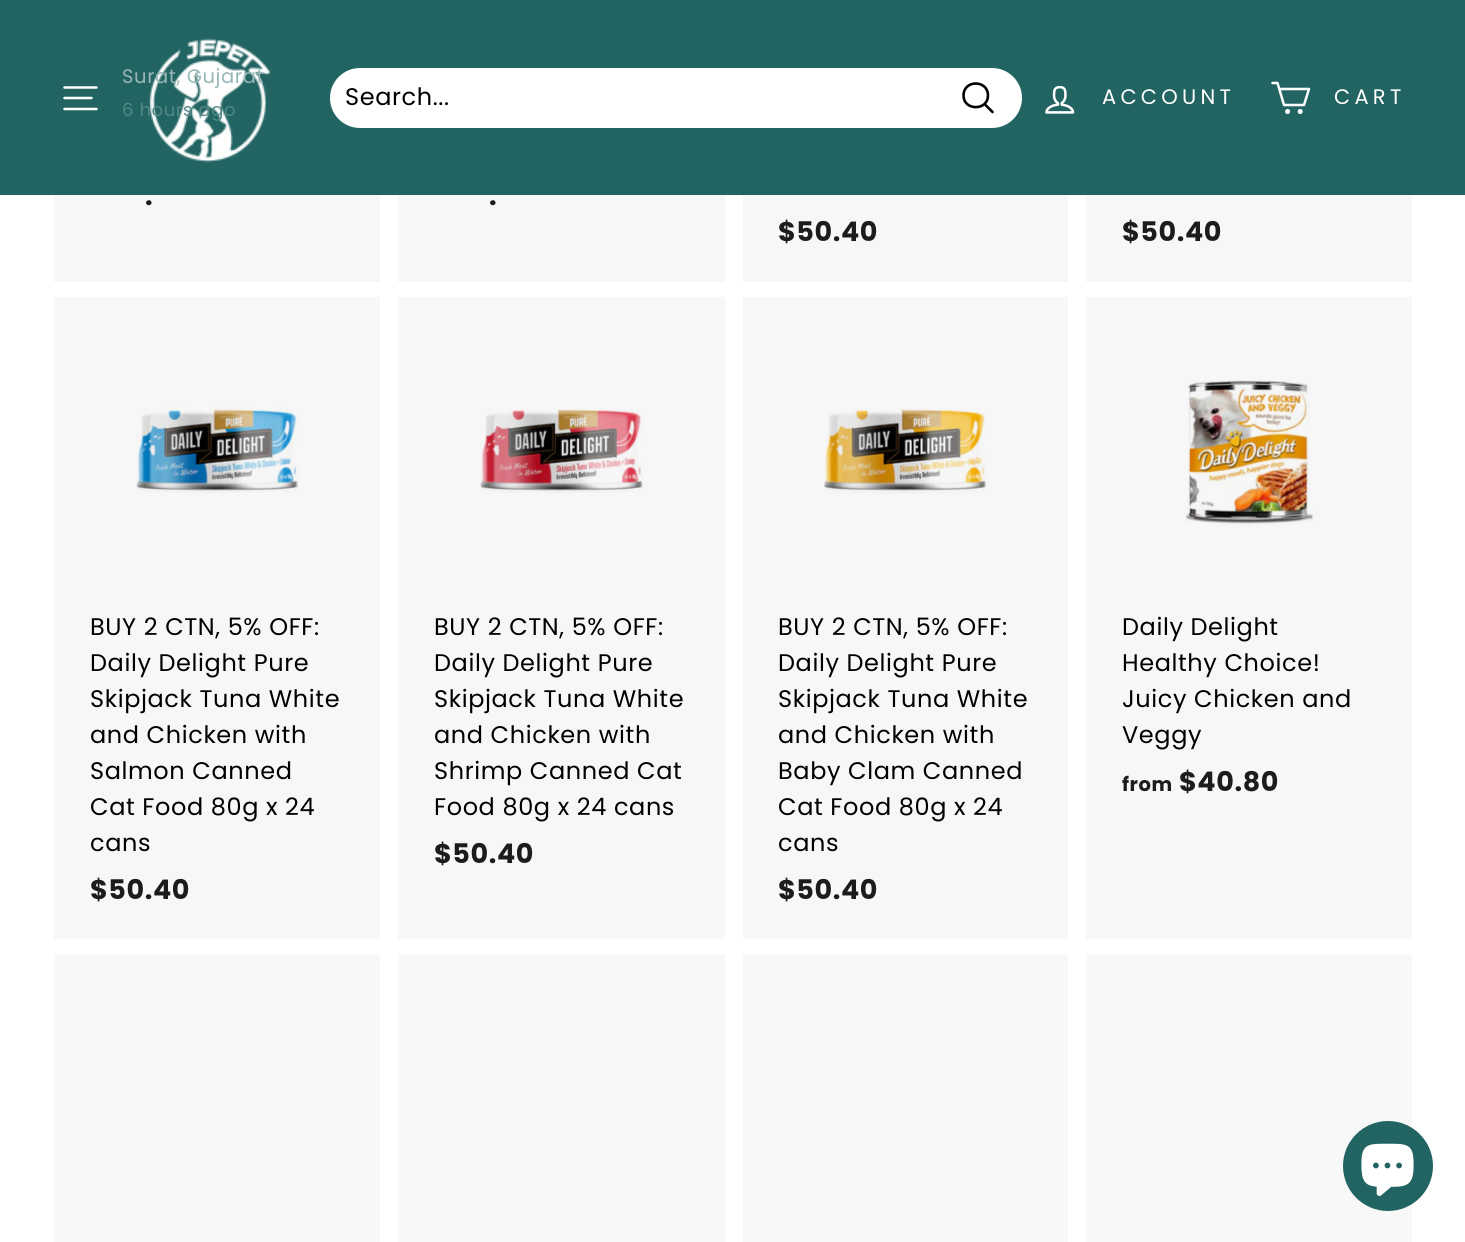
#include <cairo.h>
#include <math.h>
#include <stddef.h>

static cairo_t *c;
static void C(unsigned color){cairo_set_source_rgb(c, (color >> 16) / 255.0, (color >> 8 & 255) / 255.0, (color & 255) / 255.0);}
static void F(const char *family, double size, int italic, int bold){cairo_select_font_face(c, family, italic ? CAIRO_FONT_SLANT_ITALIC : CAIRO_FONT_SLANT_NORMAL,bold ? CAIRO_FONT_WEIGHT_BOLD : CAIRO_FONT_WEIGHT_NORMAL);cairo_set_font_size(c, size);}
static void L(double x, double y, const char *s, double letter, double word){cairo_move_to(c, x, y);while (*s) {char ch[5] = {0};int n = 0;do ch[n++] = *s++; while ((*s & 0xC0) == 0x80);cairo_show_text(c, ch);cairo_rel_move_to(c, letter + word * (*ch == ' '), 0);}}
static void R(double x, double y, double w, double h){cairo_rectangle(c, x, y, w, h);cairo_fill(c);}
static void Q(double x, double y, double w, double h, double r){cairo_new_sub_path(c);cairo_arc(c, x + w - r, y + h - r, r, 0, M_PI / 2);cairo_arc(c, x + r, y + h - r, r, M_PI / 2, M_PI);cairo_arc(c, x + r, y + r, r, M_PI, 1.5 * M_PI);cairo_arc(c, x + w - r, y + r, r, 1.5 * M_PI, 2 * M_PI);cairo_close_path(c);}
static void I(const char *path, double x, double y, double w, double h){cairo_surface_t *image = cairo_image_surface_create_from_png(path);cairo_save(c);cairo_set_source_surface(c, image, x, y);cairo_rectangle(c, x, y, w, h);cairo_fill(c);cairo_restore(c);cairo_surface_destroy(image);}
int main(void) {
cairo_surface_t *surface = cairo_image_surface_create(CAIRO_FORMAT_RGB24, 1465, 1242);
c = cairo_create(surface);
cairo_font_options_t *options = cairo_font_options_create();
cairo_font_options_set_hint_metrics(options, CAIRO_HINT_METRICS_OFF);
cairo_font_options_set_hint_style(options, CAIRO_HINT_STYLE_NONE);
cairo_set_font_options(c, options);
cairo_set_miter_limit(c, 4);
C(0xffffff);
cairo_paint(c);
C(0xf7f7f7);
R(1086,297,326,642);
R(743,297,325,642);
R(398,297,327,642);
R(54,297,326,642);
R(1086,195,326,87);
R(743,195,325,87);
R(398,195,327,87);
R(54,195,326,87);
C(0x216462);
R(0,0,1465,195);
I("1.png",149,38,122,125);
F("Poppins",19.5,0,0);
C(0x98b7b6);
L(122,83,"Surat, Gujarat",.6,0);
F("Poppins",18,0,0);
C(0x548886);
L(122,116,"6 hours ago",.6,0);
cairo_new_path(c);
cairo_move_to(c,64.5,87.5);
cairo_line_to(c,96.5,87.5);
cairo_move_to(c,64.5,98);
cairo_line_to(c,91.5,98);
cairo_move_to(c,64.5,109);
cairo_line_to(c,96.5,109);
C(0xffffff);
cairo_set_line_width(c,2.5);
cairo_set_line_cap(c,CAIRO_LINE_CAP_ROUND);
cairo_set_line_join(c,CAIRO_LINE_JOIN_ROUND);
cairo_stroke(c);
Q(330,68,692,60,30);
cairo_fill(c);
F("Poppins",24,0,0);
C(0x000000);
L(345,105,"Search...",.6,0);
cairo_new_path(c);
cairo_move_to(c,988,95.5);
cairo_curve_to(c,988,111,963.5,111,963.5,95.5);
cairo_curve_to(c,963.5,79.5,988,79.5,988,95.5);
cairo_close_path(c);
cairo_move_to(c,992.5,112);
cairo_line_to(c,984.5,104);
cairo_set_line_width(c,2.6);
cairo_stroke(c);
I("2.png",1045,85,30,29);
F("Poppins",21,0,0);
C(0xffffff);
L(1102,104,"ACCOUNT",4.25,0);
cairo_new_path(c);
cairo_move_to(c,1279.5,89);
cairo_line_to(c,1309,89);
cairo_line_to(c,1304,105);
cairo_line_to(c,1284,105);
cairo_line_to(c,1277.5,83);
cairo_line_to(c,1272.5,83);
cairo_set_line_width(c,2.5);
cairo_stroke(c);
cairo_arc(c,1287.6,111.5,1.3,0,2 * M_PI);
cairo_set_line_cap(c,CAIRO_LINE_CAP_BUTT);
cairo_set_line_join(c,CAIRO_LINE_JOIN_MITER);
cairo_stroke(c);
cairo_arc(c,1300.2,111.5,1.3,0,2 * M_PI);
cairo_stroke(c);
L(1334,104,"CART",4.25,0);
F("Poppins",27,0,1);
C(0x1b1c1c);
L(145,205,".",.6,0);
L(489,205,".",.6,0);
L(778,241,"$50.40",.6,0);
L(1122,241,"$50.40",.6,0);
I("3.png",136,407,163,86);
F("Poppins",24,0,0);
C(0x000000);
L(90,635,"BUY 2 CTN, 5% OFF:",.6,0);
L(90,671,"Daily Delight Pure",.6,0);
L(90,707,"Skipjack Tuna White",.6,0);
L(90,743,"and Chicken with",.6,0);
L(90,779,"Salmon Canned",.6,0);
L(90,815,"Cat Food 80g x 24",.6,0);
L(90,851,"cans",.6,0);
F("Poppins",27,0,1);
C(0x1b1c1c);
L(90,899,"$50.40",.6,0);
I("4.png",480,409,164,84);
F("Poppins",24,0,0);
C(0x000000);
L(434,635,"BUY 2 CTN, 5% OFF:",.6,0);
L(434,671,"Daily Delight Pure",.6,0);
L(434,707,"Skipjack Tuna White",.6,0);
L(434,743,"and Chicken with",.6,0);
L(434,779,"Shrimp Canned Cat",.6,0);
L(434,815,"Food 80g x 24 cans",.6,0);
F("Poppins",27,0,1);
C(0x1b1c1c);
L(434,863,"$50.40",.6,0);
I("5.png",824,408,163,86);
F("Poppins",24,0,0);
C(0x000000);
L(778,635,"BUY 2 CTN, 5% OFF:",.6,0);
L(778,671,"Daily Delight Pure",.6,0);
L(778,707,"Skipjack Tuna White",.6,0);
L(778,743,"and Chicken with",.6,0);
L(778,779,"Baby Clam Canned",.6,0);
L(778,815,"Cat Food 80g x 24",.6,0);
L(778,851,"cans",.6,0);
F("Poppins",27,0,1);
C(0x1b1c1c);
L(778,899,"$50.40",.6,0);
I("6.png",1185,380,128,145);
F("Poppins",24,0,0);
C(0x000000);
L(1122,635,"Daily Delight",.6,0);
L(1122,671,"Healthy Choice!",.6,0);
L(1122,707,"Juicy Chicken and",.6,0);
L(1122,743,"Veggy",.6,0);
F("Poppins",19.5,0,1);
C(0x1b1c1c);
L(1122,791,"from",.6,0);
F("Poppins",27,0,1);
L(1179,791,"$40.80",.6,0);
C(0xf8f8f8);
R(54,954,326,288);
R(398,954,327,288);
R(743,954,325,288);
R(1086,954,326,288);
C(0x216462);
cairo_new_path(c);
cairo_arc(c,1388,1166,45,0,2 * M_PI);
cairo_fill(c);
I("7.png",1361,1143,53,53);
cairo_surface_write_to_png(surface, "o.png");
cairo_font_options_destroy(options);
cairo_destroy(c);
cairo_surface_destroy(surface);
return 0;
}
